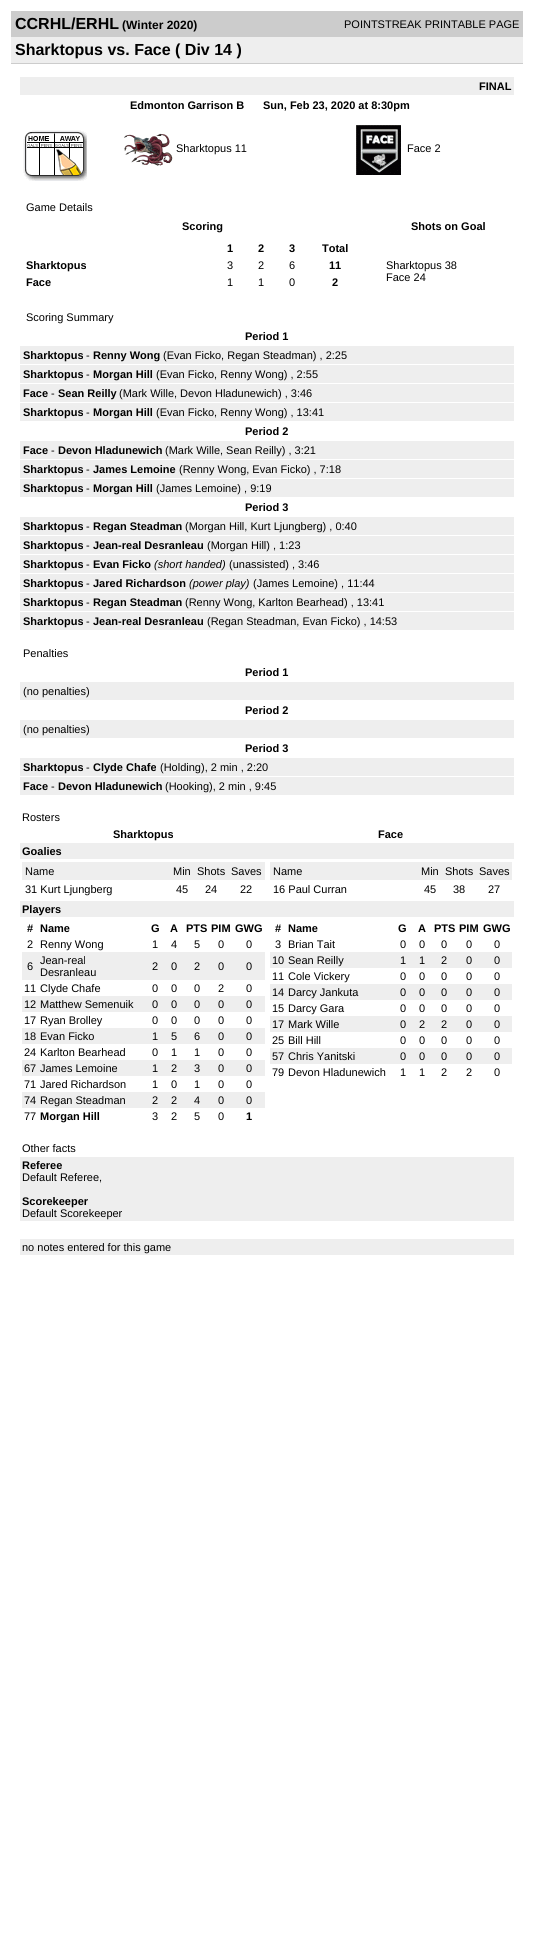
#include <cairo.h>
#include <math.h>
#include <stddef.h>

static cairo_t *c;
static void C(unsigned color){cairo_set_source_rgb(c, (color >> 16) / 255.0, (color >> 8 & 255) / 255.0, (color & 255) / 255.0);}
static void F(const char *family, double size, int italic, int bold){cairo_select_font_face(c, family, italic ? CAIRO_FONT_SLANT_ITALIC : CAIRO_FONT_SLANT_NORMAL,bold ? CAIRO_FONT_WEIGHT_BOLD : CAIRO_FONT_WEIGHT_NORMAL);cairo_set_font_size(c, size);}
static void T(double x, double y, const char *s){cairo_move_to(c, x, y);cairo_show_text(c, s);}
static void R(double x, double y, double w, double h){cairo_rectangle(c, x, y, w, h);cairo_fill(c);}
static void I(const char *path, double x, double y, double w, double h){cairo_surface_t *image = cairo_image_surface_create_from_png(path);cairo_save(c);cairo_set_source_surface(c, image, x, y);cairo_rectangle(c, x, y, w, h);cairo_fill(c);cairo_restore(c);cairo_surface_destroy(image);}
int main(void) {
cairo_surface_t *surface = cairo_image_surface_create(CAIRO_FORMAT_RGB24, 534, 1950);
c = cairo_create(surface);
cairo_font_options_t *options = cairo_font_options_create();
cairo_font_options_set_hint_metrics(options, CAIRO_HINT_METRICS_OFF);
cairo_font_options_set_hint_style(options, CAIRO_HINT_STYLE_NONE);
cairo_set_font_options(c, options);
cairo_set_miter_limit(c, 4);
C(0xffffff);
cairo_paint(c);
C(0xcccccc);
R(11,11,512,26);
F("Liberation Sans",16,0,1);
C(0x000000);
T(15,29,"CCRHL/ERHL");
F("Liberation Sans",12,0,1);
T(122,29,"(Winter 2020)");
F("Liberation Sans",11,0,0);
T(344,28,"POINTSTREAK PRINTABLE PAGE");
C(0xeeeeee);
R(11,37,512,26);
F("Liberation Sans",16,0,1);
C(0x000000);
T(15,55,"Sharktopus vs. Face ( Div 14 )");
C(0xcccccc);
R(11,63,512,1);
C(0xeeeeee);
R(20,77,494,18);
F("Liberation Sans",11,0,1);
C(0x000000);
T(479,90,"FINAL");
T(130,109,"Edmonton Garrison B");
T(263,109,"Sun, Feb 23, 2020 at 8:30pm");
I("1.png",23,130,64,51);
I("2.png",124,133,49,33);
F("Liberation Sans",11,0,0);
T(176,152,"Sharktopus 11");
I("3.png",356,125,45,50);
T(407,152,"Face 2");
T(26,211,"Game Details");
F("Liberation Sans",11,0,1);
T(182,230,"Scoring");
T(411,230,"Shots on Goal");
T(227,252,"1");
T(258,252,"2");
T(289,252,"3");
T(322,252,"Total");
T(26,269,"Sharktopus");
F("Liberation Sans",11,0,0);
T(227,269,"3");
T(258,269,"2");
T(289,269,"6");
F("Liberation Sans",11,0,1);
T(329,269,"11");
T(26,286,"Face");
F("Liberation Sans",11,0,0);
T(227,286,"1");
T(258,286,"1");
T(289,286,"0");
F("Liberation Sans",11,0,1);
T(332,286,"2");
F("Liberation Sans",11,0,0);
T(386,269,"Sharktopus 38");
T(386,281,"Face 24");
T(26,321,"Scoring Summary");
F("Liberation Sans",11,0,1);
T(245,340,"Period 1");
C(0xeeeeee);
R(20,346,494,18);
C(0x000000);
T(23,359,"Sharktopus");
F("Liberation Sans",11,0,0);
T(86,359,"-");
F("Liberation Sans",11,0,1);
T(93,359,"Renny Wong");
F("Liberation Sans",11,0,0);
T(163,359,"(Evan Ficko, Regan Steadman) , 2:25");
C(0xeeeeee);
R(20,365,494,18);
F("Liberation Sans",11,0,1);
C(0x000000);
T(23,378,"Sharktopus");
F("Liberation Sans",11,0,0);
T(86,378,"-");
F("Liberation Sans",11,0,1);
T(93,378,"Morgan Hill");
F("Liberation Sans",11,0,0);
T(156,378,"(Evan Ficko, Renny Wong) , 2:55");
C(0xeeeeee);
R(20,384,494,18);
F("Liberation Sans",11,0,1);
C(0x000000);
T(23,397,"Face");
F("Liberation Sans",11,0,0);
T(51,397,"-");
F("Liberation Sans",11,0,1);
T(58,397,"Sean Reilly");
F("Liberation Sans",11,0,0);
T(119,397,"(Mark Wille, Devon Hladunewich) , 3:46");
C(0xeeeeee);
R(20,403,494,18);
F("Liberation Sans",11,0,1);
C(0x000000);
T(23,416,"Sharktopus");
F("Liberation Sans",11,0,0);
T(86,416,"-");
F("Liberation Sans",11,0,1);
T(93,416,"Morgan Hill");
F("Liberation Sans",11,0,0);
T(156,416,"(Evan Ficko, Renny Wong) , 13:41");
F("Liberation Sans",11,0,1);
T(245,435,"Period 2");
C(0xeeeeee);
R(20,441,494,18);
C(0x000000);
T(23,454,"Face");
F("Liberation Sans",11,0,0);
T(51,454,"-");
F("Liberation Sans",11,0,1);
T(58,454,"Devon Hladunewich");
F("Liberation Sans",11,0,0);
T(165,454,"(Mark Wille, Sean Reilly) , 3:21");
C(0xeeeeee);
R(20,460,494,18);
F("Liberation Sans",11,0,1);
C(0x000000);
T(23,473,"Sharktopus");
F("Liberation Sans",11,0,0);
T(86,473,"-");
F("Liberation Sans",11,0,1);
T(93,473,"James Lemoine");
F("Liberation Sans",11,0,0);
T(179,473,"(Renny Wong, Evan Ficko) , 7:18");
C(0xeeeeee);
R(20,479,494,18);
F("Liberation Sans",11,0,1);
C(0x000000);
T(23,492,"Sharktopus");
F("Liberation Sans",11,0,0);
T(86,492,"-");
F("Liberation Sans",11,0,1);
T(93,492,"Morgan Hill");
F("Liberation Sans",11,0,0);
T(156,492,"(James Lemoine) , 9:19");
F("Liberation Sans",11,0,1);
T(245,511,"Period 3");
C(0xeeeeee);
R(20,517,494,18);
C(0x000000);
T(23,530,"Sharktopus");
F("Liberation Sans",11,0,0);
T(86,530,"-");
F("Liberation Sans",11,0,1);
T(93,530,"Regan Steadman");
F("Liberation Sans",11,0,0);
T(185,530,"(Morgan Hill, Kurt Ljungberg) , 0:40");
C(0xeeeeee);
R(20,536,494,18);
F("Liberation Sans",11,0,1);
C(0x000000);
T(23,549,"Sharktopus");
F("Liberation Sans",11,0,0);
T(86,549,"-");
F("Liberation Sans",11,0,1);
T(93,549,"Jean-real Desranleau");
F("Liberation Sans",11,0,0);
T(207,549,"(Morgan Hill) , 1:23");
C(0xeeeeee);
R(20,555,494,18);
F("Liberation Sans",11,0,1);
C(0x000000);
T(23,568,"Sharktopus");
F("Liberation Sans",11,0,0);
T(86,568,"-");
F("Liberation Sans",11,0,1);
T(93,568,"Evan Ficko");
F("Liberation Sans",11,1,0);
T(154,568,"(short handed)");
F("Liberation Sans",11,0,0);
T(229,568,"(unassisted) , 3:46");
C(0xeeeeee);
R(20,574,494,18);
F("Liberation Sans",11,0,1);
C(0x000000);
T(23,587,"Sharktopus");
F("Liberation Sans",11,0,0);
T(86,587,"-");
F("Liberation Sans",11,0,1);
T(93,587,"Jared Richardson");
F("Liberation Sans",11,1,0);
T(189,587,"(power play)");
F("Liberation Sans",11,0,0);
T(253,587,"(James Lemoine) , 11:44");
C(0xeeeeee);
R(20,593,494,18);
F("Liberation Sans",11,0,1);
C(0x000000);
T(23,606,"Sharktopus");
F("Liberation Sans",11,0,0);
T(86,606,"-");
F("Liberation Sans",11,0,1);
T(93,606,"Regan Steadman");
F("Liberation Sans",11,0,0);
T(185,606,"(Renny Wong, Karlton Bearhead) , 13:41");
C(0xeeeeee);
R(20,612,494,18);
F("Liberation Sans",11,0,1);
C(0x000000);
T(23,625,"Sharktopus");
F("Liberation Sans",11,0,0);
T(86,625,"-");
F("Liberation Sans",11,0,1);
T(93,625,"Jean-real Desranleau");
F("Liberation Sans",11,0,0);
T(207,625,"(Regan Steadman, Evan Ficko) , 14:53");
T(23,657,"Penalties");
F("Liberation Sans",11,0,1);
T(245,676,"Period 1");
C(0xeeeeee);
R(20,682,494,18);
F("Liberation Sans",11,0,0);
C(0x000000);
T(23,695,"(no penalties)");
F("Liberation Sans",11,0,1);
T(245,714,"Period 2");
C(0xeeeeee);
R(20,720,494,18);
F("Liberation Sans",11,0,0);
C(0x000000);
T(23,733,"(no penalties)");
F("Liberation Sans",11,0,1);
T(245,752,"Period 3");
C(0xeeeeee);
R(20,758,494,18);
C(0x000000);
T(23,771,"Sharktopus");
F("Liberation Sans",11,0,0);
T(86,771,"-");
F("Liberation Sans",11,0,1);
T(93,771,"Clyde Chafe");
F("Liberation Sans",11,0,0);
T(160,771,"(Holding), 2 min , 2:20");
C(0xeeeeee);
R(20,777,494,18);
F("Liberation Sans",11,0,1);
C(0x000000);
T(23,790,"Face");
F("Liberation Sans",11,0,0);
T(51,790,"-");
F("Liberation Sans",11,0,1);
T(58,790,"Devon Hladunewich");
F("Liberation Sans",11,0,0);
T(165,790,"(Hooking), 2 min , 9:45");
T(22,821,"Rosters");
F("Liberation Sans",11,0,1);
T(113,838,"Sharktopus");
T(378,838,"Face");
C(0xeeeeee);
R(20,843,494,16);
C(0x000000);
T(22,855,"Goalies");
C(0xeeeeee);
R(22,862,243,18);
F("Liberation Sans",11,0,0);
C(0x000000);
T(25,875,"Name");
T(173,875,"Min");
T(197,875,"Shots");
T(231,875,"Saves");
T(25,893,"31 Kurt Ljungberg");
T(176,893,"45");
T(205,893,"24");
T(240,893,"22");
C(0xeeeeee);
R(270,862,242,18);
C(0x000000);
T(273,875,"Name");
T(421,875,"Min");
T(445,875,"Shots");
T(479,875,"Saves");
T(273,893,"16 Paul Curran");
T(424,893,"45");
T(453,893,"38");
T(488,893,"27");
C(0xeeeeee);
R(20,901,494,16);
F("Liberation Sans",11,0,1);
C(0x000000);
T(22,913,"Players");
T(27,932,"#");
T(40,932,"Name");
T(151,932,"G");
T(170,932,"A");
T(186,932,"PTS");
T(211,932,"PIM");
T(235,932,"GWG");
F("Liberation Sans",11,0,0);
T(27,948,"2");
T(40,948,"Renny Wong");
T(152,948,"1");
T(171,948,"4");
T(194,948,"5");
T(218,948,"0");
T(246,948,"0");
C(0xeeeeee);
R(22,952,243,28);
C(0x000000);
T(27,970,"6");
T(40,964,"Jean-real");
T(40,976,"Desranleau");
T(152,970,"2");
T(171,970,"0");
T(194,970,"2");
T(218,970,"0");
T(246,970,"0");
T(24,992,"11");
T(40,992,"Clyde Chafe");
T(152,992,"0");
T(171,992,"0");
T(194,992,"0");
T(218,992,"2");
T(246,992,"0");
C(0xeeeeee);
R(22,996,243,16);
C(0x000000);
T(24,1008,"12");
T(40,1008,"Matthew Semenuik");
T(152,1008,"0");
T(171,1008,"0");
T(194,1008,"0");
T(218,1008,"0");
T(246,1008,"0");
T(24,1024,"17");
T(40,1024,"Ryan Brolley");
T(152,1024,"0");
T(171,1024,"0");
T(194,1024,"0");
T(218,1024,"0");
T(246,1024,"0");
C(0xeeeeee);
R(22,1028,243,16);
C(0x000000);
T(24,1040,"18");
T(40,1040,"Evan Ficko");
T(152,1040,"1");
T(171,1040,"5");
T(194,1040,"6");
T(218,1040,"0");
T(246,1040,"0");
T(24,1056,"24");
T(40,1056,"Karlton Bearhead");
T(152,1056,"0");
T(171,1056,"1");
T(194,1056,"1");
T(218,1056,"0");
T(246,1056,"0");
C(0xeeeeee);
R(22,1060,243,16);
C(0x000000);
T(24,1072,"67");
T(40,1072,"James Lemoine");
T(152,1072,"1");
T(171,1072,"2");
T(194,1072,"3");
T(218,1072,"0");
T(246,1072,"0");
T(24,1088,"71");
T(40,1088,"Jared Richardson");
T(152,1088,"1");
T(171,1088,"0");
T(194,1088,"1");
T(218,1088,"0");
T(246,1088,"0");
C(0xeeeeee);
R(22,1092,243,16);
C(0x000000);
T(24,1104,"74");
T(40,1104,"Regan Steadman");
T(152,1104,"2");
T(171,1104,"2");
T(194,1104,"4");
T(218,1104,"0");
T(246,1104,"0");
T(24,1120,"77");
F("Liberation Sans",11,0,1);
T(40,1120,"Morgan Hill");
F("Liberation Sans",11,0,0);
T(152,1120,"3");
T(171,1120,"2");
T(194,1120,"5");
T(218,1120,"0");
F("Liberation Sans",11,0,1);
T(246,1120,"1");
T(275,932,"#");
T(288,932,"Name");
T(398,932,"G");
T(418,932,"A");
T(434,932,"PTS");
T(459,932,"PIM");
T(483,932,"GWG");
F("Liberation Sans",11,0,0);
T(275,948,"3");
T(288,948,"Brian Tait");
T(400,948,"0");
T(419,948,"0");
T(441,948,"0");
T(466,948,"0");
T(494,948,"0");
C(0xeeeeee);
R(270,952,242,16);
C(0x000000);
T(272,964,"10");
T(288,964,"Sean Reilly");
T(400,964,"1");
T(419,964,"1");
T(441,964,"2");
T(466,964,"0");
T(494,964,"0");
T(272,980,"11");
T(288,980,"Cole Vickery");
T(400,980,"0");
T(419,980,"0");
T(441,980,"0");
T(466,980,"0");
T(494,980,"0");
C(0xeeeeee);
R(270,984,242,16);
C(0x000000);
T(272,996,"14");
T(288,996,"Darcy Jankuta");
T(400,996,"0");
T(419,996,"0");
T(441,996,"0");
T(466,996,"0");
T(494,996,"0");
T(272,1012,"15");
T(288,1012,"Darcy Gara");
T(400,1012,"0");
T(419,1012,"0");
T(441,1012,"0");
T(466,1012,"0");
T(494,1012,"0");
C(0xeeeeee);
R(270,1016,242,16);
C(0x000000);
T(272,1028,"17");
T(288,1028,"Mark Wille");
T(400,1028,"0");
T(419,1028,"2");
T(441,1028,"2");
T(466,1028,"0");
T(494,1028,"0");
T(272,1044,"25");
T(288,1044,"Bill Hill");
T(400,1044,"0");
T(419,1044,"0");
T(441,1044,"0");
T(466,1044,"0");
T(494,1044,"0");
C(0xeeeeee);
R(270,1048,242,16);
C(0x000000);
T(272,1060,"57");
T(288,1060,"Chris Yanitski");
T(400,1060,"0");
T(419,1060,"0");
T(441,1060,"0");
T(466,1060,"0");
T(494,1060,"0");
T(272,1076,"79");
T(288,1076,"Devon Hladunewich");
T(400,1076,"1");
T(419,1076,"1");
T(441,1076,"2");
T(466,1076,"2");
T(494,1076,"0");
T(22,1152,"Other facts");
C(0xeeeeee);
R(20,1157,494,64);
F("Liberation Sans",11,0,1);
C(0x000000);
T(22,1169,"Referee");
F("Liberation Sans",11,0,0);
T(22,1181,"Default Referee,");
F("Liberation Sans",11,0,1);
T(22,1205,"Scorekeeper");
F("Liberation Sans",11,0,0);
T(22,1217,"Default Scorekeeper");
C(0xeeeeee);
R(20,1239,494,16);
C(0x000000);
T(22,1251,"no notes entered for this game");
cairo_surface_write_to_png(surface, "o.png");
cairo_font_options_destroy(options);
cairo_destroy(c);
cairo_surface_destroy(surface);
return 0;
}
